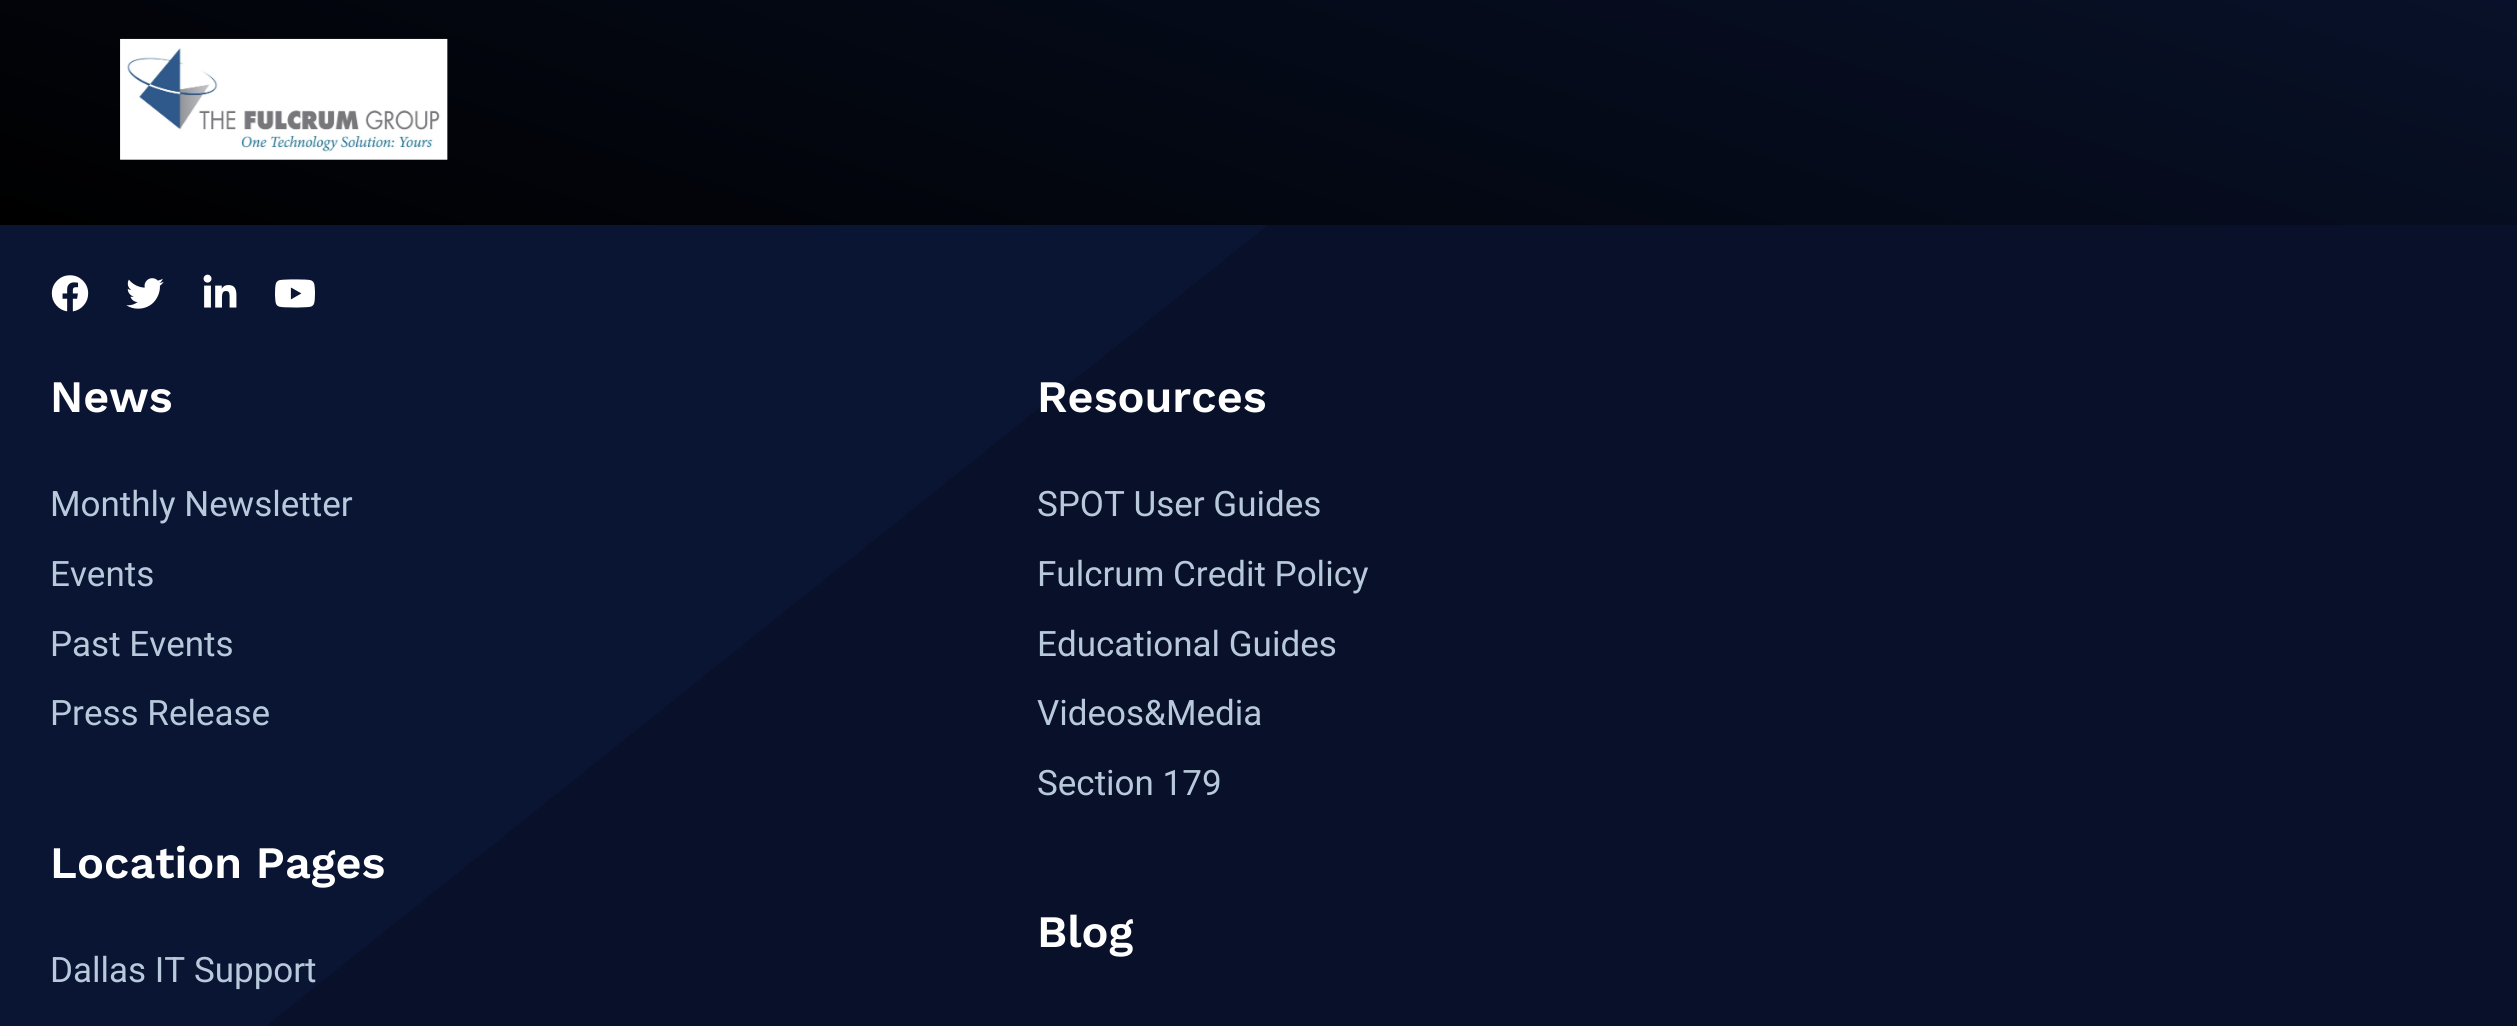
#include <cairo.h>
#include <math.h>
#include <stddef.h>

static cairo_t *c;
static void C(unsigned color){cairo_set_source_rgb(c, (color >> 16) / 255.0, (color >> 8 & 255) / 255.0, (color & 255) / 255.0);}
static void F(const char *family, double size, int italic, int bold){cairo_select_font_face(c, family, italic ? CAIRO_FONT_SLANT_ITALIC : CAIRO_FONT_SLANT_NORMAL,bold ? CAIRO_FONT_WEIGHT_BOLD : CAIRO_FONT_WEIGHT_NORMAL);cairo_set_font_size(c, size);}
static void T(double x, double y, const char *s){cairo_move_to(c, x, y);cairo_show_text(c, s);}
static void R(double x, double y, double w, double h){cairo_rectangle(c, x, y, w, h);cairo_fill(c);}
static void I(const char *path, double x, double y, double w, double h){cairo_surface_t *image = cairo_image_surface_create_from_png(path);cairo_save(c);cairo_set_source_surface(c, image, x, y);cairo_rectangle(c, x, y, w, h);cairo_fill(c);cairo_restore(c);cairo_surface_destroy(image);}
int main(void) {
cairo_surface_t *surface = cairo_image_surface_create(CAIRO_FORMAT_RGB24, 2517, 1026);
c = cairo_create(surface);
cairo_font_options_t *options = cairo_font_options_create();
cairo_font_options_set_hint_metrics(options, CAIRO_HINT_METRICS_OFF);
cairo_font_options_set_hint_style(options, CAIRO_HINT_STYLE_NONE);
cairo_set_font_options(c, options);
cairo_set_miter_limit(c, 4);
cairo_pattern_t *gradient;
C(0x081129);
cairo_paint(c);
C(0x0a1533);
cairo_new_path(c);
cairo_move_to(c,0,-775);
cairo_line_to(c,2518,-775);
cairo_line_to(c,0,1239);
cairo_close_path(c);
cairo_fill(c);
gradient = cairo_pattern_create_linear(1412,-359,1105,584);
cairo_pattern_add_color_stop_rgba(gradient,0,0.031,0.067,0.161,1);
cairo_pattern_add_color_stop_rgba(gradient,1,0,0,0,1);
cairo_set_source(c,gradient);
cairo_pattern_destroy(gradient);
R(0,0,2517,225);
I("1.png",120,38,328,122);
I("2.png",51,275,38,37);
I("3.png",126,278,38,31);
I("4.png",203,274,34,34);
I("5.png",275,279,40,29);
F("Work Sans SemiBold",45,0,0);
C(0xffffff);
T(50,412,"News");
F("Roboto",35,0,0);
C(0xb8c9db);
T(50,516,"Monthly Newsletter");
T(50,586,"Events");
T(50,656,"Past Events");
T(50,725,"Press Release");
F("Work Sans SemiBold",45,0,0);
C(0xffffff);
T(50,878,"Location Pages");
F("Roboto",35,0,0);
C(0xb8c9db);
T(50,982,"Dallas IT Support");
F("Work Sans SemiBold",45,0,0);
C(0xffffff);
T(1037,412,"Resources");
F("Roboto",35,0,0);
C(0xb8c9db);
T(1037,516,"SPOT User Guides");
T(1037,586,"Fulcrum Credit Policy");
T(1037,656,"Educational Guides");
T(1037,725,"Videos&Media");
T(1037,795,"Section 179");
F("Work Sans SemiBold",45,0,0);
C(0xffffff);
T(1037,947,"Blog");
cairo_surface_write_to_png(surface, "o.png");
cairo_font_options_destroy(options);
cairo_destroy(c);
cairo_surface_destroy(surface);
return 0;
}
